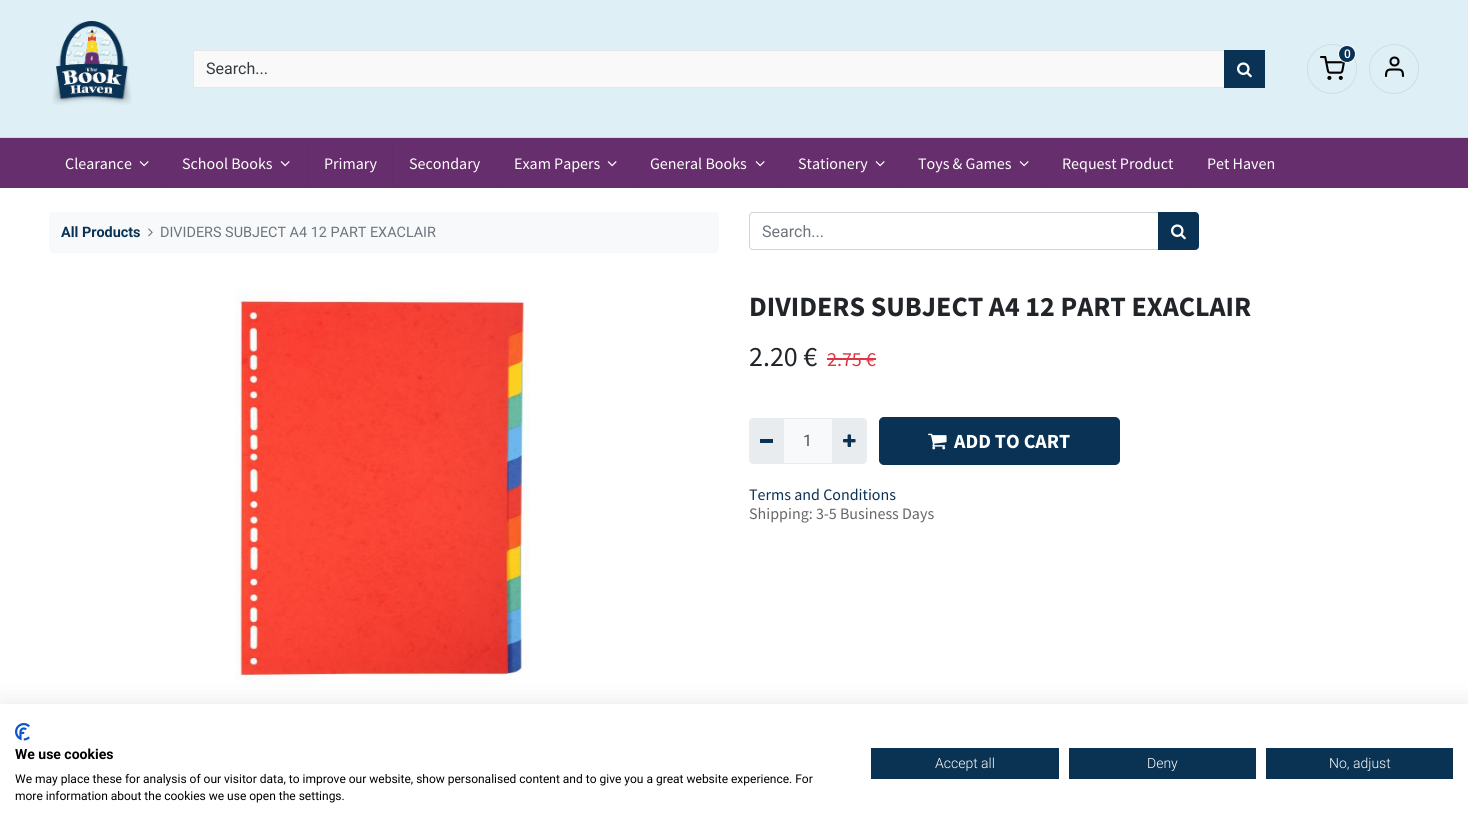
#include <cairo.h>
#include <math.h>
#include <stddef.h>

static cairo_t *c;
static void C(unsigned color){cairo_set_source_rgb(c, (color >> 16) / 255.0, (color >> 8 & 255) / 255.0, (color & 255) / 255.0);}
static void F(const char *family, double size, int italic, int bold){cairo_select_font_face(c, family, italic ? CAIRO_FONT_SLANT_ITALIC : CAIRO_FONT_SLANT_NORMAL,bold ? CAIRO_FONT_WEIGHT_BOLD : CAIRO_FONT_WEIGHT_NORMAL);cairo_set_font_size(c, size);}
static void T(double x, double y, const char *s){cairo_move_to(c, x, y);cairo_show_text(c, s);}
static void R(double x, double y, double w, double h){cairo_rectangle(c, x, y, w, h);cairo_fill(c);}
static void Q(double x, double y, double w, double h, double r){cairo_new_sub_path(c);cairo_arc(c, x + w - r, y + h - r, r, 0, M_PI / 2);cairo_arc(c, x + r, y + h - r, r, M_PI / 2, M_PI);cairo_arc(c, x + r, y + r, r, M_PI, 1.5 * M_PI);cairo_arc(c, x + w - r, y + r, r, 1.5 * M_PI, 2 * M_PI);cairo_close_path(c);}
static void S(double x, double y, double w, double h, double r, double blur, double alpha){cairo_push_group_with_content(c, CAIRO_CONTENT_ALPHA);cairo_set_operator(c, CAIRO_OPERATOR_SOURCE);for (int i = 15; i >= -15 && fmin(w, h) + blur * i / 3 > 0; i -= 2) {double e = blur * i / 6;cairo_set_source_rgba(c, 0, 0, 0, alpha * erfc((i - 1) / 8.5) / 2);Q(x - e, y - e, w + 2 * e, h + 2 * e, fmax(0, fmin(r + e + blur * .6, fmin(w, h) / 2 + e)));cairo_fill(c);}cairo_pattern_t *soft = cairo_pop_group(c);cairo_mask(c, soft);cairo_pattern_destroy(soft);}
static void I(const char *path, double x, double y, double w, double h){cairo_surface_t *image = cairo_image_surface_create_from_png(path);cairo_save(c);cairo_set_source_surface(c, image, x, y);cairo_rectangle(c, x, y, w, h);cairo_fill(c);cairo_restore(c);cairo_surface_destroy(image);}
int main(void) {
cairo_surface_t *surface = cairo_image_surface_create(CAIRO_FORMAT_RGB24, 1468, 832);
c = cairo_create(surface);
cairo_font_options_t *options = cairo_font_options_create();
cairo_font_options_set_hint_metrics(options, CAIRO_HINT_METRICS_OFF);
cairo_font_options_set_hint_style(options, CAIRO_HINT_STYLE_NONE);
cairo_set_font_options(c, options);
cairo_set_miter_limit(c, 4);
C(0xffffff);
cairo_paint(c);
C(0xdef0f6);
R(0,0,1468,137);
C(0xcddee4);
R(0,137,1468,1);
I("1.png",52,21,80,84);
cairo_arc(c,1332,69,24.5,0,2 * M_PI);
cairo_set_line_width(c,1);
cairo_stroke(c);
I("2.png",1320,56,25,24);
C(0x0a3254);
cairo_arc(c,1347,54,8.5,0,2 * M_PI);
cairo_fill_preserve(c);
C(0xffffff);
cairo_stroke(c);
F("Roboto Medium",12,0,0);
T(1344,58,"0");
cairo_new_path(c);
cairo_arc(c,1394,69,24.5,0,2 * M_PI);
C(0xcddee4);
cairo_stroke(c);
cairo_new_path(c);
cairo_move_to(c,1403,76);
cairo_curve_to(c,1403,69,1400.5,69.5,1394.5,69.5);
cairo_curve_to(c,1388.5,69.5,1386,69,1386,76);
C(0x000000);
cairo_set_line_width(c,2.1);
cairo_set_line_cap(c,CAIRO_LINE_CAP_ROUND);
cairo_set_line_join(c,CAIRO_LINE_JOIN_ROUND);
cairo_stroke(c);
cairo_arc(c,1394.5,61.5,4,0,2 * M_PI);
cairo_set_line_cap(c,CAIRO_LINE_CAP_BUTT);
cairo_set_line_join(c,CAIRO_LINE_JOIN_MITER);
cairo_stroke(c);
C(0xf9f9f9);
cairo_rectangle(c,193.5,50.5,1031,37);
cairo_fill_preserve(c);
C(0xe5e6e6);
cairo_set_line_width(c,1);
cairo_stroke(c);
F("Roboto",16,0,0);
C(0x343a40);
T(206,74,"Search...");
C(0x0a3254);
R(1224,50,41,38);
I("3.png",1237,62,15,16);
C(0x662e6c);
R(0,138,1468,50);
F("Source Sans Pro",16,0,0);
C(0xffffff);
T(65,169,"Clearance");
I("4.png",139,161,10,6);
C(0x612f68);
R(165,138,1,50);
C(0xffffff);
T(182,169,"School Books");
I("4.png",280,161,10,6);
C(0x612f68);
R(307,138,1,50);
C(0xffffff);
T(324,169,"Primary");
C(0x612f68);
R(392,138,1,50);
C(0xffffff);
T(409,169,"Secondary");
C(0x612f68);
R(497,138,1,50);
C(0xffffff);
T(514,169,"Exam Papers");
I("4.png",607,161,10,6);
C(0x612f68);
R(633,138,1,50);
C(0xffffff);
T(650,169,"General Books");
I("4.png",755,161,10,6);
C(0x612f68);
R(781,138,1,50);
C(0xffffff);
T(798,169,"Stationery");
I("4.png",875,161,10,6);
C(0x612f68);
R(901,138,1,50);
C(0xffffff);
T(918,169,"Toys & Games");
I("4.png",1019,161,10,6);
C(0x612f68);
R(1045,138,1,50);
C(0xffffff);
T(1062,169,"Request Product");
C(0x612f68);
R(1190,138,1,50);
C(0xffffff);
T(1207,169,"Pet Haven");
C(0xf8f9fa);
Q(49,212,670,41,4);
cairo_fill(c);
F("Roboto",14.4,0,1);
C(0x0a3254);
T(61,237,"All Products");
I("5.png",148,228,5,9);
F("Roboto",14.4,0,0);
C(0x6c757d);
T(160,237,"DIVIDERS SUBJECT A4 12 PART EXACLAIR");
cairo_new_path(c);
cairo_move_to(c,753,212.5);
cairo_line_to(c,1158.5,212.5);
cairo_line_to(c,1158.5,249.5);
cairo_line_to(c,753,249.5);
cairo_curve_to(c,751,249.5,749.5,248,749.5,246);
cairo_line_to(c,749.5,216);
cairo_curve_to(c,749.5,214,751,212.5,753,212.5);
cairo_close_path(c);
C(0xced4da);
cairo_stroke(c);
F("Roboto",16,0,0);
C(0x6c757d);
T(762,237,"Search...");
C(0x0a3254);
cairo_new_path(c);
cairo_move_to(c,1158.5,212.5);
cairo_line_to(c,1195,212.5);
cairo_curve_to(c,1197,212.5,1198.5,214,1198.5,216);
cairo_line_to(c,1198.5,246);
cairo_curve_to(c,1198.5,248,1197,249.5,1195,249.5);
cairo_line_to(c,1158.5,249.5);
cairo_close_path(c);
cairo_fill_preserve(c);
cairo_stroke(c);
I("3.png",1171,224,15,16);
I("6.png",235,290,295,397);
F("Source Sans Pro",28,0,1);
C(0x212529);
T(749,316,"DIVIDERS SUBJECT A4 12 PART EXACLAIR");
F("Source Sans Pro",28,0,0);
T(749,366,"2.20 €");
F("Source Sans Pro",20,0,0);
C(0xdc3545);
T(827,366,"2.75 €");
R(827,358,49,2);
C(0xf8f9fa);
cairo_rectangle(c,783.5,418.5,49,45);
cairo_fill_preserve(c);
C(0xe9ecef);
cairo_stroke(c);
cairo_new_path(c);
cairo_move_to(c,753,418);
cairo_line_to(c,784,418);
cairo_line_to(c,784,464);
cairo_line_to(c,753,464);
cairo_curve_to(c,751,464,749,462,749,460);
cairo_line_to(c,749,422);
cairo_curve_to(c,749,420,751,418,753,418);
cairo_close_path(c);
cairo_fill(c);
C(0x0a3254);
R(760,439,13,4);
F("Roboto",16,0,0);
C(0x495057);
T(803,446,"1");
C(0xe9ecef);
cairo_new_path(c);
cairo_move_to(c,832,418);
cairo_line_to(c,863,418);
cairo_curve_to(c,865,418,867,420,867,422);
cairo_line_to(c,867,460);
cairo_curve_to(c,867,462,865,464,863,464);
cairo_line_to(c,832,464);
cairo_close_path(c);
cairo_fill(c);
I("7.png",843,434,13,13);
C(0x0a3254);
Q(879.5,417.5,240,47,4.5);
cairo_fill_preserve(c);
cairo_stroke(c);
I("8.png",928,433,19,17);
F("Source Sans Pro",20,0,1);
C(0xffffff);
T(954,448,"ADD TO CART");
F("Source Sans Pro",16,0,0);
C(0x0a3254);
T(749,500,"Terms and Conditions");
C(0x646669);
T(749,519,"Shipping: 3-5 Business Days");
C(0x000000);
S(0,704,1468,128,0,12,.1);
C(0xffffff);
R(0,704,1468,128);
I("9.png",15,723,15,18);
F("Roboto",14,0,1);
C(0x000000);
T(15,759,"We use cookies");
F("Roboto",12,0,0);
T(15,783,"We may place these for analysis of our visitor data, to improve our website, show personalised content and to give you a great website experience. For");
T(15,800,"more information about the cookies we use open the settings.");
C(0x0a3253);
R(871,748,188,31);
F("Roboto Light",14,0,0);
C(0xffffff);
T(935,768,"Accept all");
C(0x0a3253);
R(1069,748,187,31);
C(0xffffff);
T(1147,768,"Deny");
C(0x0a3253);
R(1266,748,187,31);
C(0xffffff);
T(1329,768,"No, adjust");
cairo_surface_write_to_png(surface, "o.png");
cairo_font_options_destroy(options);
cairo_destroy(c);
cairo_surface_destroy(surface);
return 0;
}
